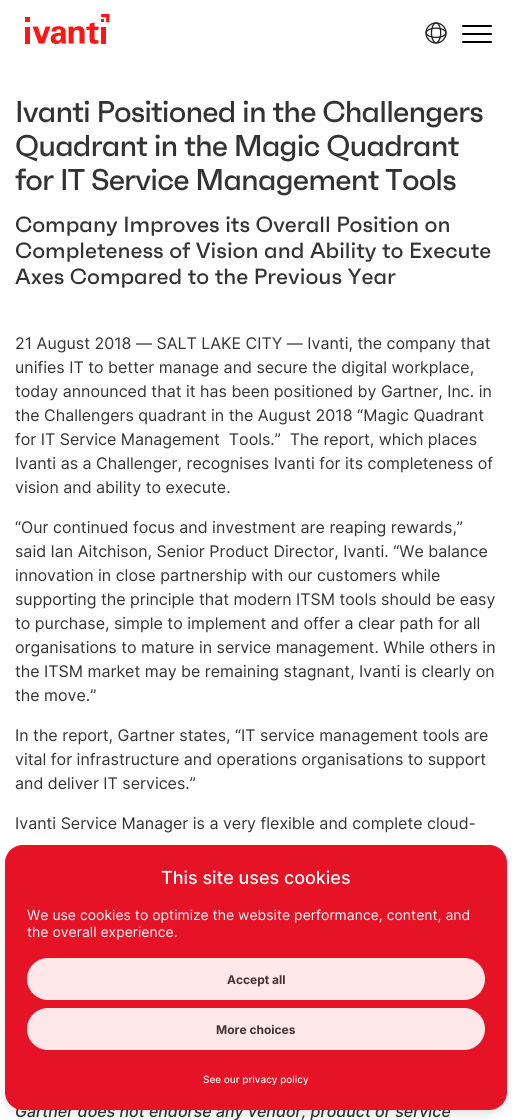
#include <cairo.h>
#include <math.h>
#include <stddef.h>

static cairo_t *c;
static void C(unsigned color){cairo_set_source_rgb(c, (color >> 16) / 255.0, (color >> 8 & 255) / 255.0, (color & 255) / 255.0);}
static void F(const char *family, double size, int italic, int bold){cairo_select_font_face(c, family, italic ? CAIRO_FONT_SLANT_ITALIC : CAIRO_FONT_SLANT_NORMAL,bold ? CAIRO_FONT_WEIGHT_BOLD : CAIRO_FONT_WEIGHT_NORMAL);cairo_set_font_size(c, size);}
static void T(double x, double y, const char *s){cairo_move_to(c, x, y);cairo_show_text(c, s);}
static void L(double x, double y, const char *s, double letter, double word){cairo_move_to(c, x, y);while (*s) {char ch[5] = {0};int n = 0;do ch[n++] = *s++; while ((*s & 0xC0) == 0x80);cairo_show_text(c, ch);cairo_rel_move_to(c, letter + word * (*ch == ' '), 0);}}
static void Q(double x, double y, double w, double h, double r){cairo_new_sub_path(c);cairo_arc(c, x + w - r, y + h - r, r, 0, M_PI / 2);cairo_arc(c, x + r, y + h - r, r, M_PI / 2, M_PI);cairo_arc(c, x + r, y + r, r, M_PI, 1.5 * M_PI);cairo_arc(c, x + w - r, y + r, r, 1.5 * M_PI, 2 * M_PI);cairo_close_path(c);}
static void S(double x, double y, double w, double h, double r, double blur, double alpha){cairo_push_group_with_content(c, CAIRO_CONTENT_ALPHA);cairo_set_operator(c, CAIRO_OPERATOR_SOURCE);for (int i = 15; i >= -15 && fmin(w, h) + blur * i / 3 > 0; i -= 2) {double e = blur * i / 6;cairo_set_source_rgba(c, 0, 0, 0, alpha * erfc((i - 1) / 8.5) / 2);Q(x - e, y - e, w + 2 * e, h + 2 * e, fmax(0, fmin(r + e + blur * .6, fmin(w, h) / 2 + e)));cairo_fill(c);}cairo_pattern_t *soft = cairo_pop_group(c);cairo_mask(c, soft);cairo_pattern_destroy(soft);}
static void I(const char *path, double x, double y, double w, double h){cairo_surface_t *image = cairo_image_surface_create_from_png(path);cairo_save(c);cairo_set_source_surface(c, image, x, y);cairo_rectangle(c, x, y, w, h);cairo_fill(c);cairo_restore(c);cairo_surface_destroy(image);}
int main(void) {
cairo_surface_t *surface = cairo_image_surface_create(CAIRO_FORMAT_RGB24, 512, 1120);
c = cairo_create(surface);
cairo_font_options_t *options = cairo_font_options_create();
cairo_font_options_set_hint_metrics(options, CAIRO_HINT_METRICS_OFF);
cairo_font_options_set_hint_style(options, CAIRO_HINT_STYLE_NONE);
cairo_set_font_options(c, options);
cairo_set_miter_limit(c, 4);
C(0xffffff);
cairo_paint(c);
I("1.png",25,14,85,30);
I("2.png",425,22,22,22);
C(0x000000);
Q(462,33,30,2,1);
cairo_fill(c);
Q(462,25,30,2,1);
cairo_fill(c);
Q(462,41,30,2,1);
cairo_fill(c);
F("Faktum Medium",30,0,0);
C(0x333333);
L(15,122,"Ivanti Positioned in the Challengers",-.9,0);
L(15,156,"Quadrant in the Magic Quadrant",-.9,0);
L(15,190,"for IT Service Management Tools",-.9,0);
F("Faktum Medium",22,0,0);
T(15,232,"Company Improves its Overall Position on");
T(15,258,"Completeness of Vision and Ability to Execute");
T(15,284,"Axes Compared to the Previous Year");
F("Inter",16,0,0);
T(15,349,"21 August 2018 — SALT LAKE CITY — Ivanti, the company that");
T(15,373,"unifies IT to better manage and secure the digital workplace,");
T(15,397,"today announced that it has been positioned by Gartner, Inc. in");
T(15,421,"the Challengers quadrant in the August 2018 “Magic Quadrant");
T(15,445,"for IT Service Management  Tools.”  The report, which places");
T(15,469,"Ivanti as a Challenger, recognises Ivanti for its completeness of");
T(15,493,"vision and ability to execute.");
T(15,533,"“Our continued focus and investment are reaping rewards,”");
T(15,557,"said Ian Aitchison, Senior Product Director, Ivanti. “We balance");
T(15,581,"innovation in close partnership with our customers while");
T(15,605,"supporting the principle that modern ITSM tools should be easy");
T(15,629,"to purchase, simple to implement and offer a clear path for all");
T(15,653,"organisations to mature in service management. While others in");
T(15,677,"the ITSM market may be remaining stagnant, Ivanti is clearly on");
T(15,701,"the move.”");
T(15,741,"In the report, Gartner states, “IT service management tools are");
T(15,765,"vital for infrastructure and operations organisations to support");
T(15,789,"and deliver IT services.”");
T(15,829,"Ivanti Service Manager is a very flexible and complete cloud-");
F("Inter Medium",16,1,0);
T(15,1117,"Gartner does not endorse any vendor, product or service");
C(0x000000);
S(5,850,502,265,18,5,.1);
C(0xe61226);
Q(5.5,845.5,501,264,17.5);
cairo_fill_preserve(c);
cairo_set_line_width(c,1);
cairo_stroke(c);
F("Inter Medium",18,0,0);
C(0xffffff);
T(161,884,"This site uses cookies");
F("Inter",14,0,0);
T(27,920,"We use cookies to optimize the website performance, content, and");
T(27,937,"the overall experience.");
C(0xfde7e9);
Q(27,958,458,42,21);
cairo_fill(c);
F("Inter",12,0,1);
C(0x453032);
T(227,984,"Accept all");
C(0xfde7e9);
Q(27,1008,458,42,21);
cairo_fill(c);
C(0x453032);
T(216,1034,"More choices");
F("Inter Medium",10,0,0);
C(0xffffff);
T(203,1083,"See our privacy policy");
cairo_surface_write_to_png(surface, "o.png");
cairo_font_options_destroy(options);
cairo_destroy(c);
cairo_surface_destroy(surface);
return 0;
}
